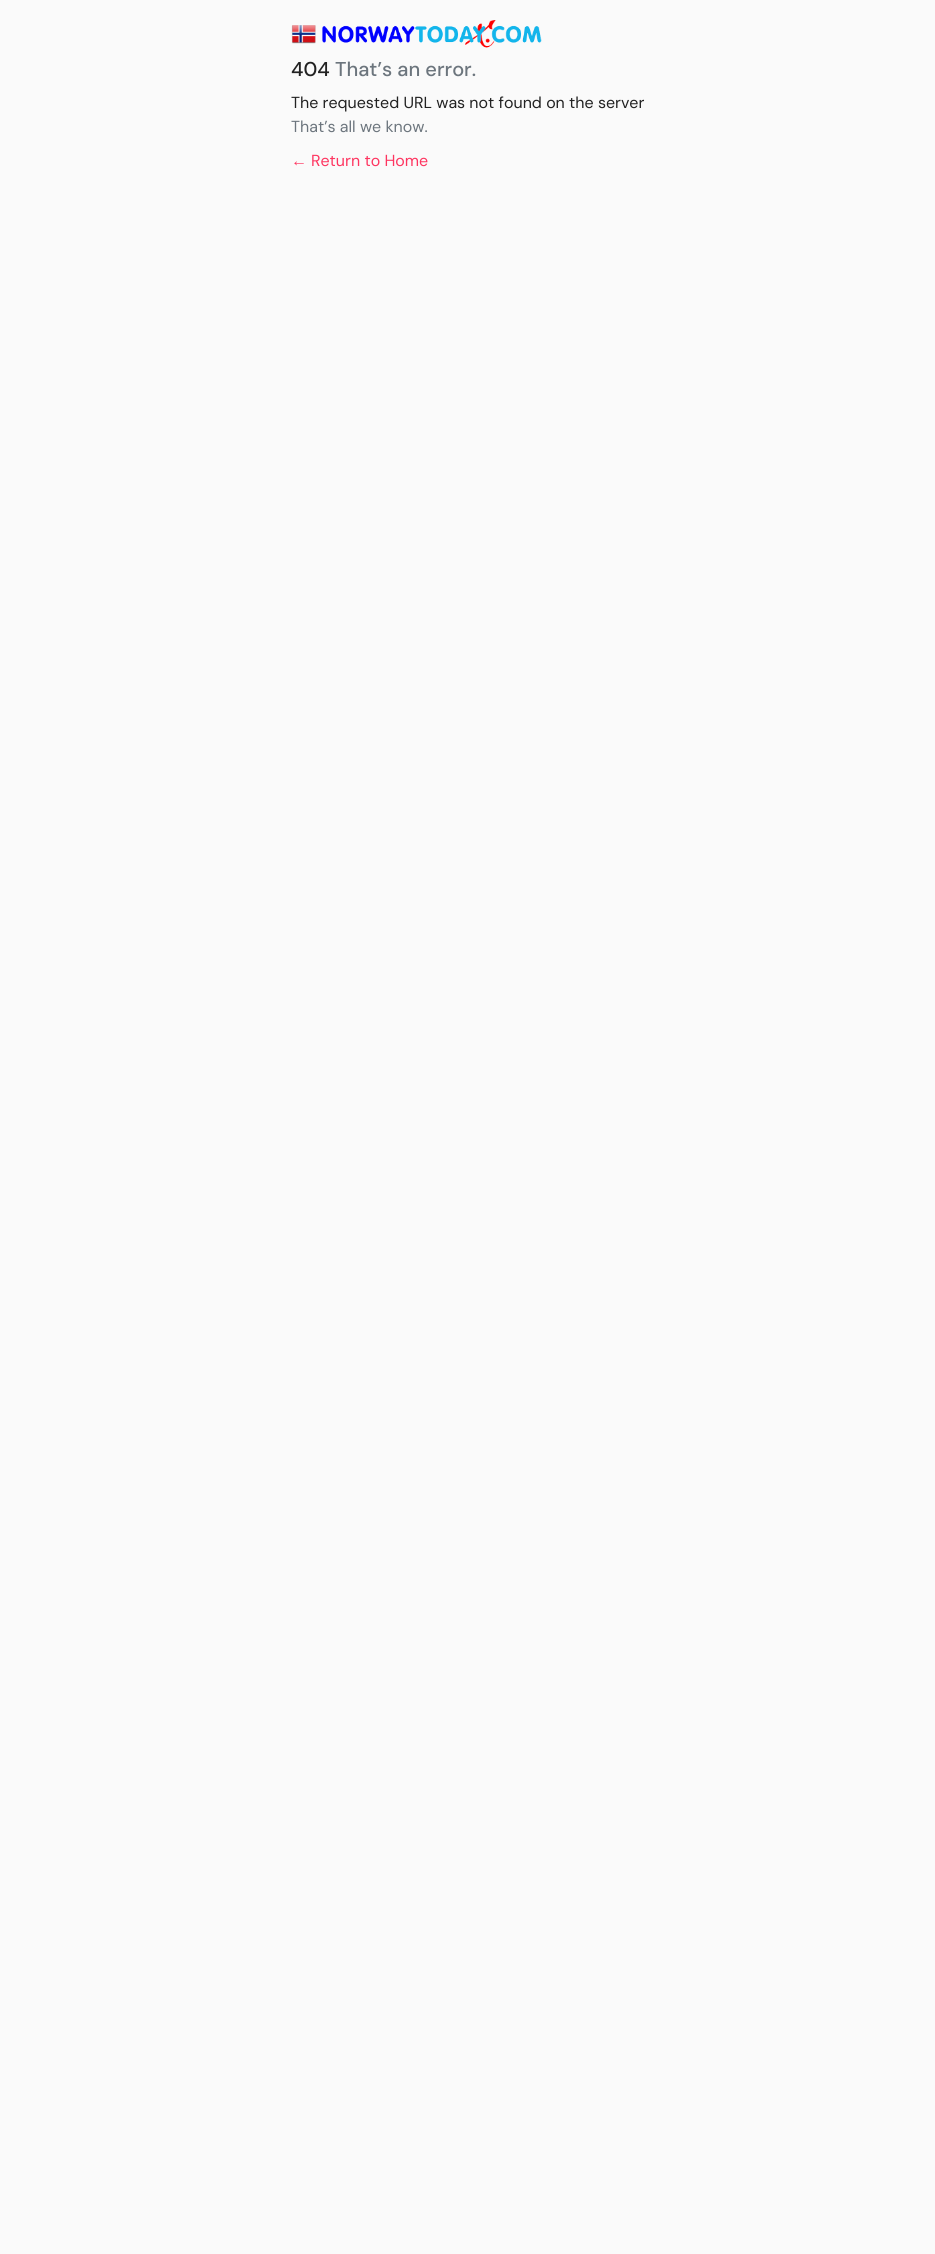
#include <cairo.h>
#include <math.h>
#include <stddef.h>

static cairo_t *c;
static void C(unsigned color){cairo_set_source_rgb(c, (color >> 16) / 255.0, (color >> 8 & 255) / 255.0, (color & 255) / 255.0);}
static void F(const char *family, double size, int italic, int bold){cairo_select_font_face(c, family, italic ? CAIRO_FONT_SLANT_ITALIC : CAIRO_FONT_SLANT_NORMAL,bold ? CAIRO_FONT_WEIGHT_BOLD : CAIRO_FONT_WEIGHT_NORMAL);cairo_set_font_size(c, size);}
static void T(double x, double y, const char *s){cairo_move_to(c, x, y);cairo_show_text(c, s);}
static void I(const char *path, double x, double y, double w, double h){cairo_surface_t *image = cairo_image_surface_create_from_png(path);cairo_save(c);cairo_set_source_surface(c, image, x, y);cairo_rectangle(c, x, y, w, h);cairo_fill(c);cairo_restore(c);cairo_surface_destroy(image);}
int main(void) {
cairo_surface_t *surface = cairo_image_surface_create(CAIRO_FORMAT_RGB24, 935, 2254);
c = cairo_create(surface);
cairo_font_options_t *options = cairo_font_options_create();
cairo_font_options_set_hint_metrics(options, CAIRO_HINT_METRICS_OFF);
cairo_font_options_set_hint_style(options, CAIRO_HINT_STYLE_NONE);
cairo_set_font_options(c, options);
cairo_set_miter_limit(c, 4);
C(0xfafafa);
cairo_paint(c);
I("1.png",291,20,251,28);
F("DM Sans Medium",20,0,0);
C(0x222222);
T(291,76,"404");
C(0x6c757d);
T(335,76,"That’s an error.");
F("DM Sans",16,0,0);
C(0x222222);
T(291,108,"The requested URL was not found on the server");
C(0x6c757d);
T(291,132,"That’s all we know.");
F("Liberation Sans",16,0,0);
C(0xfe3560);
T(291,166,"←");
F("DM Sans",16,0,0);
T(311,166,"Return to Home");
cairo_surface_write_to_png(surface, "o.png");
cairo_font_options_destroy(options);
cairo_destroy(c);
cairo_surface_destroy(surface);
return 0;
}
